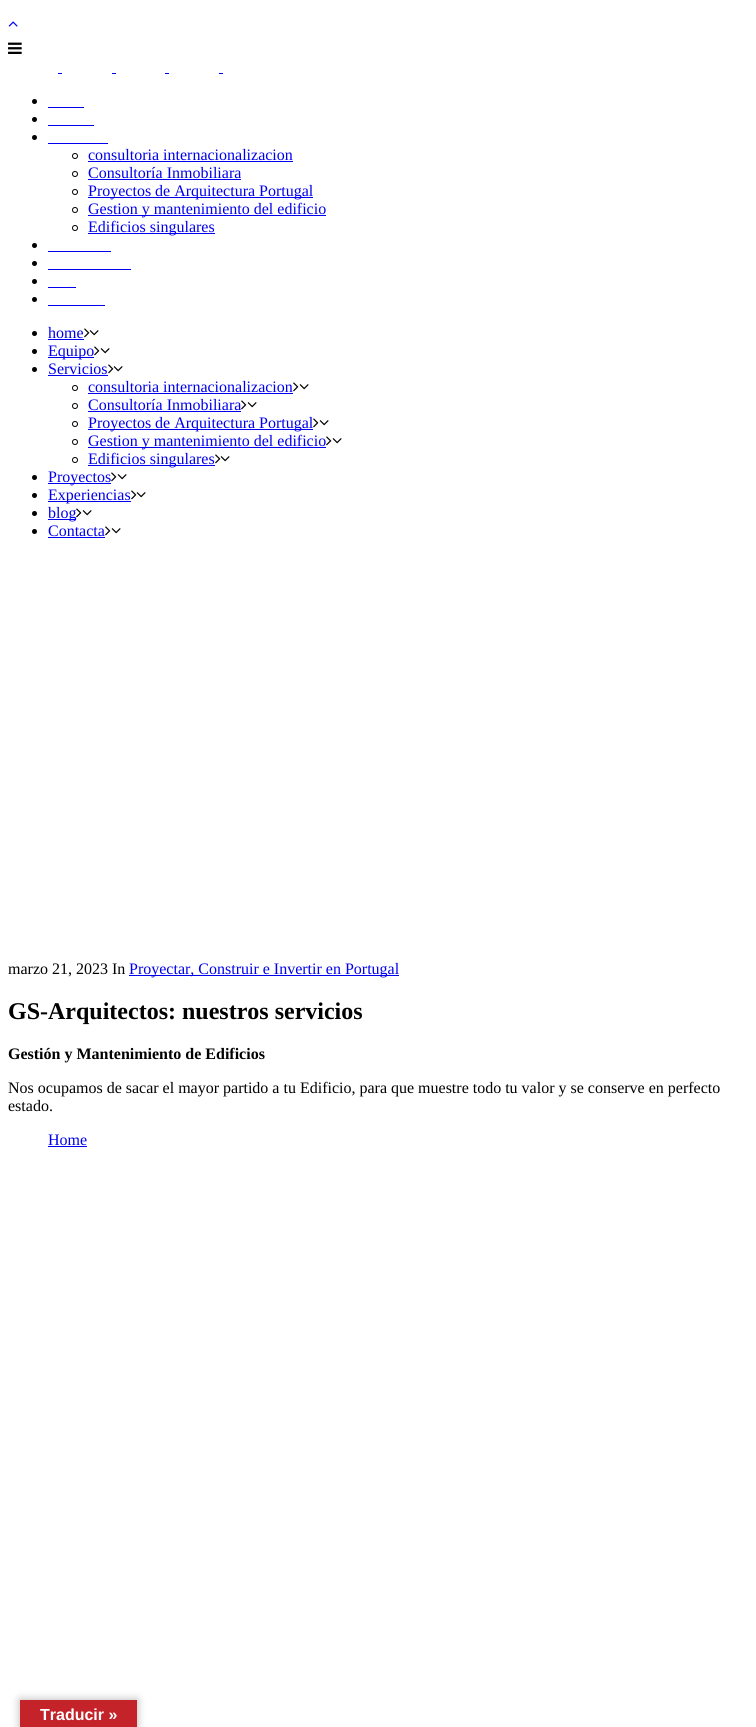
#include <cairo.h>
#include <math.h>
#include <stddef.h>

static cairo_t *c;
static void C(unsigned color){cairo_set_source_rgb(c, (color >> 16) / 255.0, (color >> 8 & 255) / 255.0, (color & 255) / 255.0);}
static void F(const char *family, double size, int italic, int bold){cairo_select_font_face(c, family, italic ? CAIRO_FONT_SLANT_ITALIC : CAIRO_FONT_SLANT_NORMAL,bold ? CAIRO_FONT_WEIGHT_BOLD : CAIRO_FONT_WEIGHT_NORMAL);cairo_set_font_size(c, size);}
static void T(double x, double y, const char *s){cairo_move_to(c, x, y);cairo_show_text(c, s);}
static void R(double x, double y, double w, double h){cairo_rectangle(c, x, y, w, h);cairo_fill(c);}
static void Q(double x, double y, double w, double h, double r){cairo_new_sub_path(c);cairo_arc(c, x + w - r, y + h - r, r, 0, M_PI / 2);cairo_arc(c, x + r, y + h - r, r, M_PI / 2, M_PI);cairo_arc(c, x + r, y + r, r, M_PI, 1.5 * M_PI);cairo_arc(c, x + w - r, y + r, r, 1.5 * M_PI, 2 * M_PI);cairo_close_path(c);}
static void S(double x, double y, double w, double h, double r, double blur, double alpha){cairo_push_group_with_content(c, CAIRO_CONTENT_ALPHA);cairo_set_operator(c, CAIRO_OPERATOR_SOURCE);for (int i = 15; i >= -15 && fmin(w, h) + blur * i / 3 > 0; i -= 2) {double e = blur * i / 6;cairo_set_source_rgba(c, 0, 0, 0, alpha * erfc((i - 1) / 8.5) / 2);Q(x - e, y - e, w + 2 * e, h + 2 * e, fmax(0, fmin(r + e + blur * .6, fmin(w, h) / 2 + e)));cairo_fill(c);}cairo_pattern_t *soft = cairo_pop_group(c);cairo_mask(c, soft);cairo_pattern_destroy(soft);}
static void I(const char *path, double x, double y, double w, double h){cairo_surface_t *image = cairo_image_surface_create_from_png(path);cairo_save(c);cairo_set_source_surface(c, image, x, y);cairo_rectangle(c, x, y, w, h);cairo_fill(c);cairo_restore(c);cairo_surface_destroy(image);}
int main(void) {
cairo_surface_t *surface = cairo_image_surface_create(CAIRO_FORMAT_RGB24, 756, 1727);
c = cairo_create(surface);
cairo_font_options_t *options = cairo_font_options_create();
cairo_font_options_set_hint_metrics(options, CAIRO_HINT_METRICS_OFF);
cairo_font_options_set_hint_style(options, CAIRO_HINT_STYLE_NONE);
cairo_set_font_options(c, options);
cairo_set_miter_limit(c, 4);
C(0xffffff);
cairo_paint(c);
I("1.png",8,21,10,6);
I("2.png",8,42,14,12);
C(0x0000ee);
R(58,73,4,1);
R(112,73,4,1);
R(165,73,4,1);
R(219,73,4,1);
C(0x000000);
cairo_arc(c,34.5,101.5,2.5,0,2 * M_PI);
cairo_fill(c);
C(0x0000ee);
R(48,107,36,1);
C(0x000000);
cairo_arc(c,34.5,119.5,2.5,0,2 * M_PI);
cairo_fill(c);
C(0x0000ee);
R(48,125,46,1);
C(0x000000);
cairo_arc(c,34.5,137.5,2.5,0,2 * M_PI);
cairo_fill(c);
C(0x0000ee);
R(48,143,60,1);
cairo_arc(c,75,156,2.5,0,2 * M_PI);
C(0x000000);
cairo_set_line_width(c,1);
cairo_stroke(c);
F("Liberation Serif",16,0,0);
C(0x0000ee);
T(88,160,"consultoria internacionalizacion");
R(88,161,205,1);
cairo_new_path(c);
cairo_arc(c,75,174,2.5,0,2 * M_PI);
C(0x000000);
cairo_stroke(c);
C(0x0000ee);
T(88,178,"Consultoría Inmobiliara");
R(88,179,153,1);
cairo_new_path(c);
cairo_arc(c,75,192,2.5,0,2 * M_PI);
C(0x000000);
cairo_stroke(c);
C(0x0000ee);
R(88,197,225,1);
T(88,196,"Proyectos de Arquitectura Portugal");
cairo_new_path(c);
cairo_arc(c,75,210,2.5,0,2 * M_PI);
C(0x000000);
cairo_stroke(c);
C(0x0000ee);
R(88,215,238,1);
T(88,214,"Gestion y mantenimiento del edificio");
cairo_new_path(c);
cairo_arc(c,75,228,2.5,0,2 * M_PI);
C(0x000000);
cairo_stroke(c);
C(0x0000ee);
R(88,233,127,1);
T(88,232,"Edificios singulares");
C(0x000000);
cairo_new_path(c);
cairo_arc(c,34.5,245.5,2.5,0,2 * M_PI);
cairo_fill(c);
C(0x0000ee);
R(48,251,63,1);
C(0x000000);
cairo_arc(c,34.5,263.5,2.5,0,2 * M_PI);
cairo_fill(c);
C(0x0000ee);
R(48,269,83,1);
C(0x000000);
cairo_arc(c,34.5,281.5,2.5,0,2 * M_PI);
cairo_fill(c);
C(0x0000ee);
R(48,287,28,1);
C(0x000000);
cairo_arc(c,34.5,299.5,2.5,0,2 * M_PI);
cairo_fill(c);
C(0x0000ee);
R(48,305,57,1);
C(0x000000);
cairo_arc(c,34.5,333.5,2.5,0,2 * M_PI);
cairo_fill(c);
C(0x0000ee);
T(48,338,"home");
R(48,339,36,1);
I("3.png",84,328,6,10);
I("4.png",89,330,10,6);
C(0x000000);
cairo_arc(c,34.5,351.5,2.5,0,2 * M_PI);
cairo_fill(c);
C(0x0000ee);
R(48,357,46,1);
T(48,356,"Equipo");
I("3.png",94,346,6,10);
I("5.png",100,348,10,6);
C(0x000000);
cairo_arc(c,34.5,369.5,2.5,0,2 * M_PI);
cairo_fill(c);
C(0x0000ee);
T(48,374,"Servicios");
R(48,375,60,1);
I("3.png",108,364,6,10);
I("4.png",113,366,10,6);
cairo_arc(c,75,388,2.5,0,2 * M_PI);
C(0x000000);
cairo_stroke(c);
C(0x0000ee);
T(88,392,"consultoria internacionalizacion");
R(88,393,205,1);
I("3.png",293,382,6,10);
I("5.png",299,384,10,6);
cairo_arc(c,75,406,2.5,0,2 * M_PI);
C(0x000000);
cairo_stroke(c);
C(0x0000ee);
T(88,410,"Consultoría Inmobiliara");
R(88,411,153,1);
I("6.png",241,400,6,10);
I("5.png",247,402,10,6);
cairo_arc(c,75,424,2.5,0,2 * M_PI);
C(0x000000);
cairo_stroke(c);
C(0x0000ee);
R(88,429,225,1);
T(88,428,"Proyectos de Arquitectura Portugal");
I("3.png",313,418,6,10);
I("5.png",319,420,10,6);
cairo_arc(c,75,442,2.5,0,2 * M_PI);
C(0x000000);
cairo_stroke(c);
C(0x0000ee);
R(88,447,238,1);
T(88,446,"Gestion y mantenimiento del edificio");
I("3.png",326,436,6,10);
I("5.png",332,438,10,6);
cairo_arc(c,75,460,2.5,0,2 * M_PI);
C(0x000000);
cairo_stroke(c);
C(0x0000ee);
R(88,465,127,1);
T(88,464,"Edificios singulares");
I("3.png",215,454,6,10);
I("4.png",220,456,10,6);
C(0x000000);
cairo_arc(c,34.5,477.5,2.5,0,2 * M_PI);
cairo_fill(c);
C(0x0000ee);
R(48,483,63,1);
T(48,482,"Proyectos");
I("3.png",111,472,6,10);
I("5.png",117,474,10,6);
C(0x000000);
cairo_arc(c,34.5,495.5,2.5,0,2 * M_PI);
cairo_fill(c);
C(0x0000ee);
R(48,501,83,1);
T(48,500,"Experiencias");
I("3.png",131,490,6,10);
I("4.png",136,492,10,6);
C(0x000000);
cairo_arc(c,34.5,513.5,2.5,0,2 * M_PI);
cairo_fill(c);
C(0x0000ee);
R(48,519,28,1);
T(48,518,"blog");
I("3.png",76,508,6,10);
I("5.png",82,510,10,6);
C(0x000000);
cairo_arc(c,34.5,531.5,2.5,0,2 * M_PI);
cairo_fill(c);
C(0x0000ee);
T(48,536,"Contacta");
R(48,537,57,1);
I("3.png",105,526,6,10);
I("5.png",111,528,10,6);
C(0x000000);
T(8,974,"marzo 21, 2023 In");
C(0x0000ee);
R(129,975,270,1);
T(129,974,"Proyectar, Construir e Invertir en Portugal");
F("Liberation Serif",24,0,1);
C(0x000000);
T(8,1019,"GS-Arquitectos: nuestros servicios");
F("Liberation Serif",16,0,1);
T(8,1059,"Gestión y Mantenimiento de Edificios");
F("Liberation Serif",16,0,0);
T(8,1093,"Nos ocupamos de sacar el mayor partido a tu Edificio, para que muestre todo tu valor y se conserve en perfecto");
T(8,1111,"estado.");
C(0x0000ee);
T(48,1145,"Home");
R(48,1146,39,1);
C(0x000000);
S(20,1700,117,27,0,4.5,.3);
C(0xc32329);
R(20,1700,117,27);
F("Liberation Sans",16,0,1);
C(0xffffff);
T(40,1720,"Traducir »");
cairo_surface_write_to_png(surface, "o.png");
cairo_font_options_destroy(options);
cairo_destroy(c);
cairo_surface_destroy(surface);
return 0;
}
